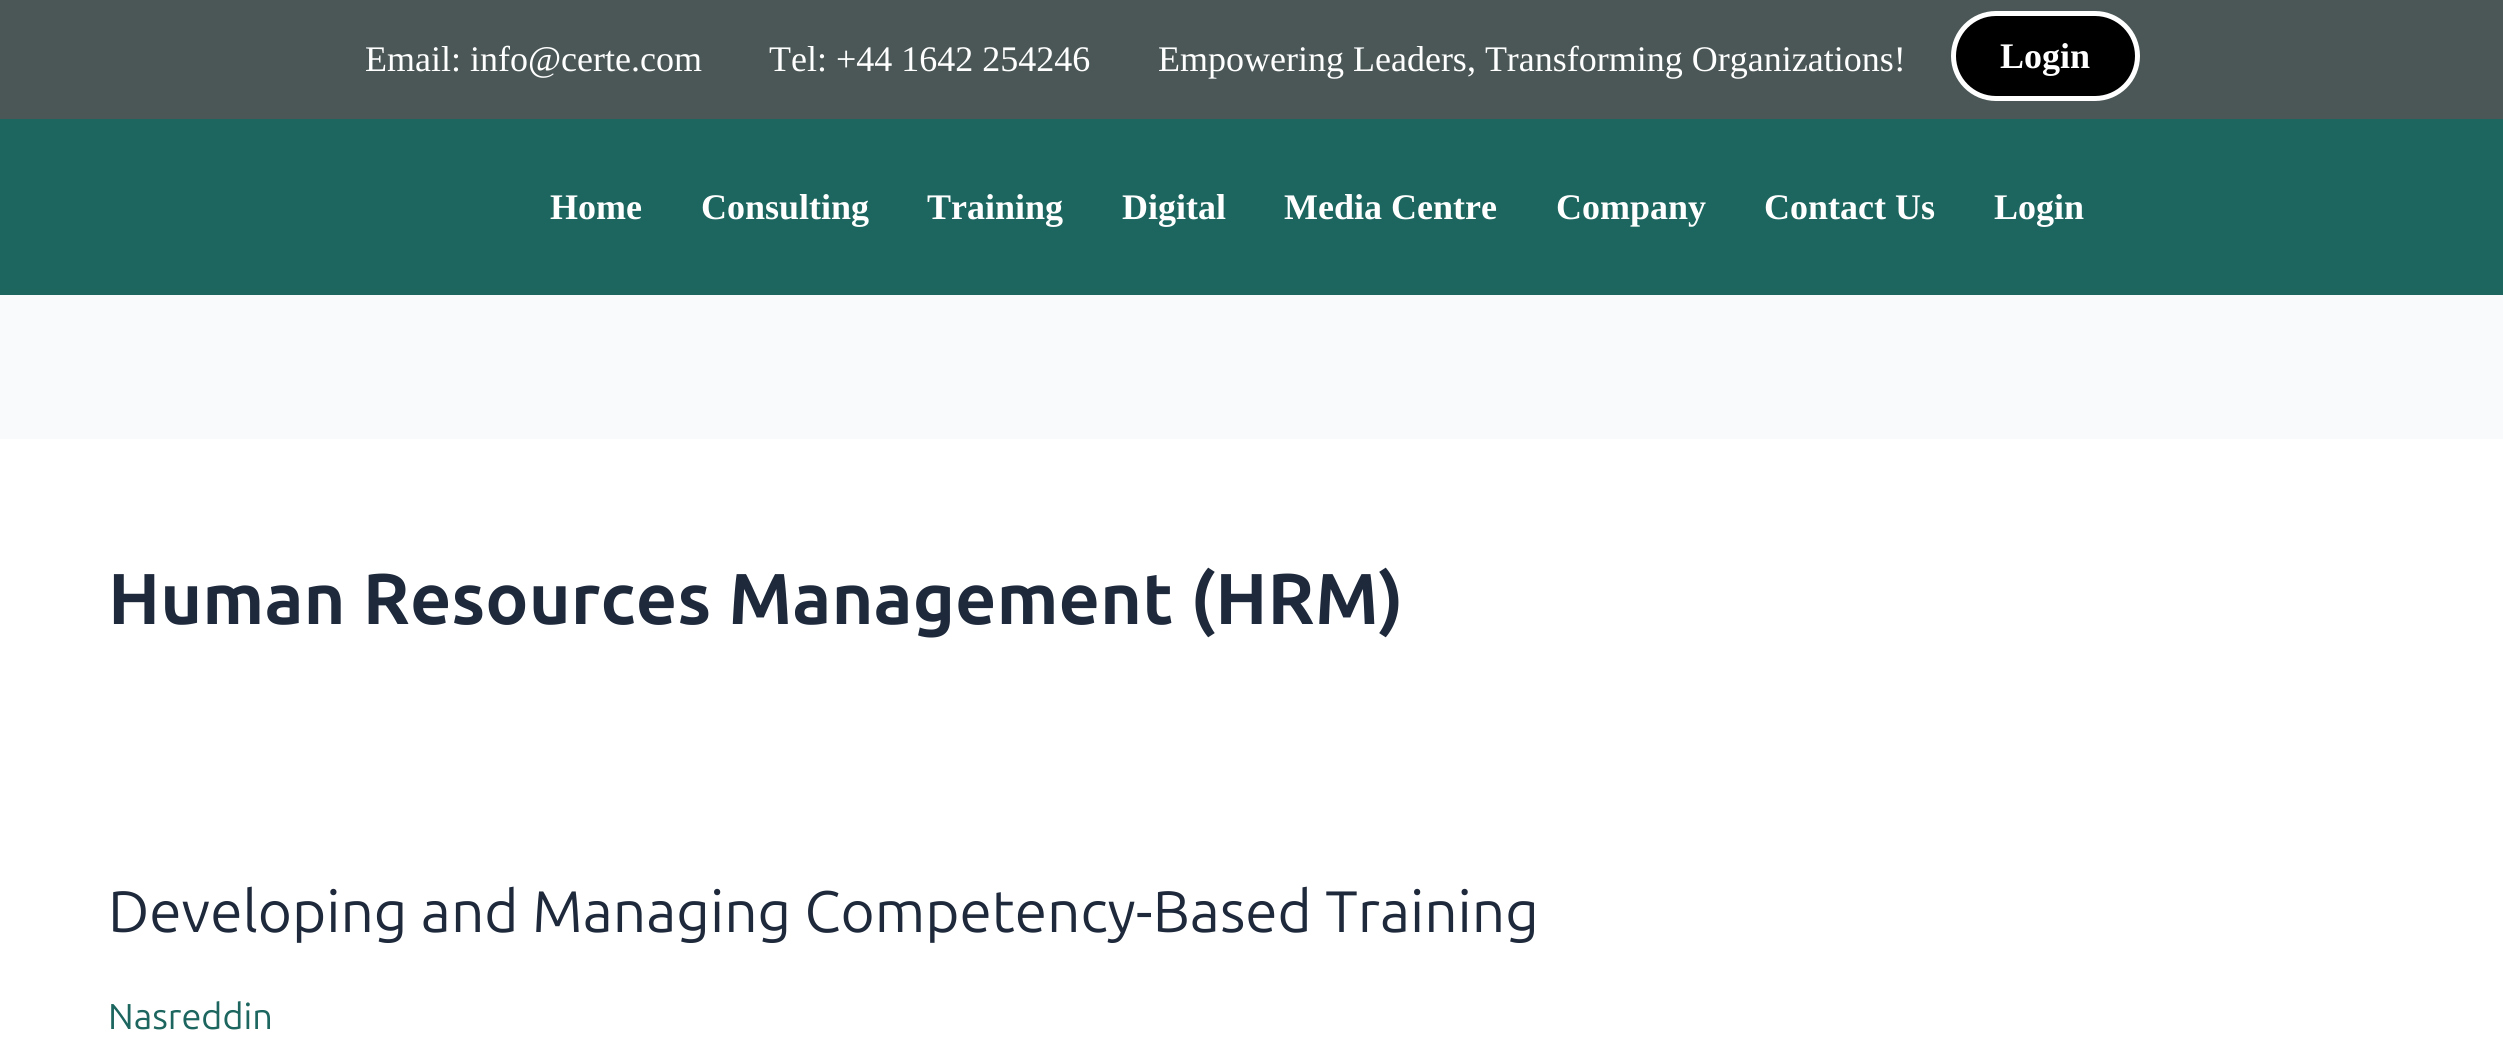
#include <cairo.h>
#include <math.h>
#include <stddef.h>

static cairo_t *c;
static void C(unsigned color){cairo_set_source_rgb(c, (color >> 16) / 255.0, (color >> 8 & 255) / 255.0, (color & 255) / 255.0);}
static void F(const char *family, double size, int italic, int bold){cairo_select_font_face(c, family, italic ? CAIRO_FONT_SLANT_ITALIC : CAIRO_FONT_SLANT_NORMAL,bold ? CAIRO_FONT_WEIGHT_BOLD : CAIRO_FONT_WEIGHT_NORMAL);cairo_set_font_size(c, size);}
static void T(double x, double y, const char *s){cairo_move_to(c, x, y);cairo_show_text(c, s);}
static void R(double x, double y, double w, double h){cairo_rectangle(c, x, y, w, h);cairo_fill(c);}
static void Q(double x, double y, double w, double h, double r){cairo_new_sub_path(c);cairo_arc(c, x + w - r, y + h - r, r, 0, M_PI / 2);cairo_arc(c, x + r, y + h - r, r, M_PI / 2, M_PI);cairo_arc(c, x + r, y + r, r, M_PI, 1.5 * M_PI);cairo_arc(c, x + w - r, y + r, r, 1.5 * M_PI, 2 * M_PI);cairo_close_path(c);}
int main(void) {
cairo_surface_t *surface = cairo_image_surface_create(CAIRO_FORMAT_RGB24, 2503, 1043);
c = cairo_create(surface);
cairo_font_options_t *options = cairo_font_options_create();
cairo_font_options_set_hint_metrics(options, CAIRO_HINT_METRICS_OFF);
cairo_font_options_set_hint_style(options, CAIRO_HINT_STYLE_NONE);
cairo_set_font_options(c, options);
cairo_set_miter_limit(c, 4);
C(0xf9fafb);
cairo_paint(c);
C(0x4a5756);
R(0,0,2503,119);
F("Liberation Serif",36,0,0);
C(0xffffff);
T(365,71,"Email: info@certe.com");
T(769,71,"Tel: +44 1642 254246");
T(1158,71,"Empowering Leaders, Transforming Organizations!");
C(0x000000);
Q(1953.5,13.5,184,85,42.5);
cairo_fill_preserve(c);
C(0xffffff);
cairo_set_line_width(c,5);
cairo_stroke(c);
F("Liberation Serif",36,0,1);
T(2000,68,"Login");
C(0x1c665f);
R(0,119,2503,176);
C(0xffffff);
T(550,219,"Home");
T(701,219,"Consulting");
T(927,219,"Training");
T(1122,219,"Digital");
T(1284,219,"Media Centre");
T(1556,219,"Company");
T(1764,219,"Contact Us");
T(1994,219,"Login");
R(0,439,2503,604);
F("Ubuntu",72,0,1);
C(0x1e293b);
T(108,624,"Human Resources Management (HRM)");
F("Ubuntu",58.5,0,0);
T(108,932,"Developing and Managing Competency-Based Training");
F("Ubuntu",36,0,0);
C(0x1c665f);
T(108,1029,"Nasreddin");
cairo_surface_write_to_png(surface, "o.png");
cairo_font_options_destroy(options);
cairo_destroy(c);
cairo_surface_destroy(surface);
return 0;
}
